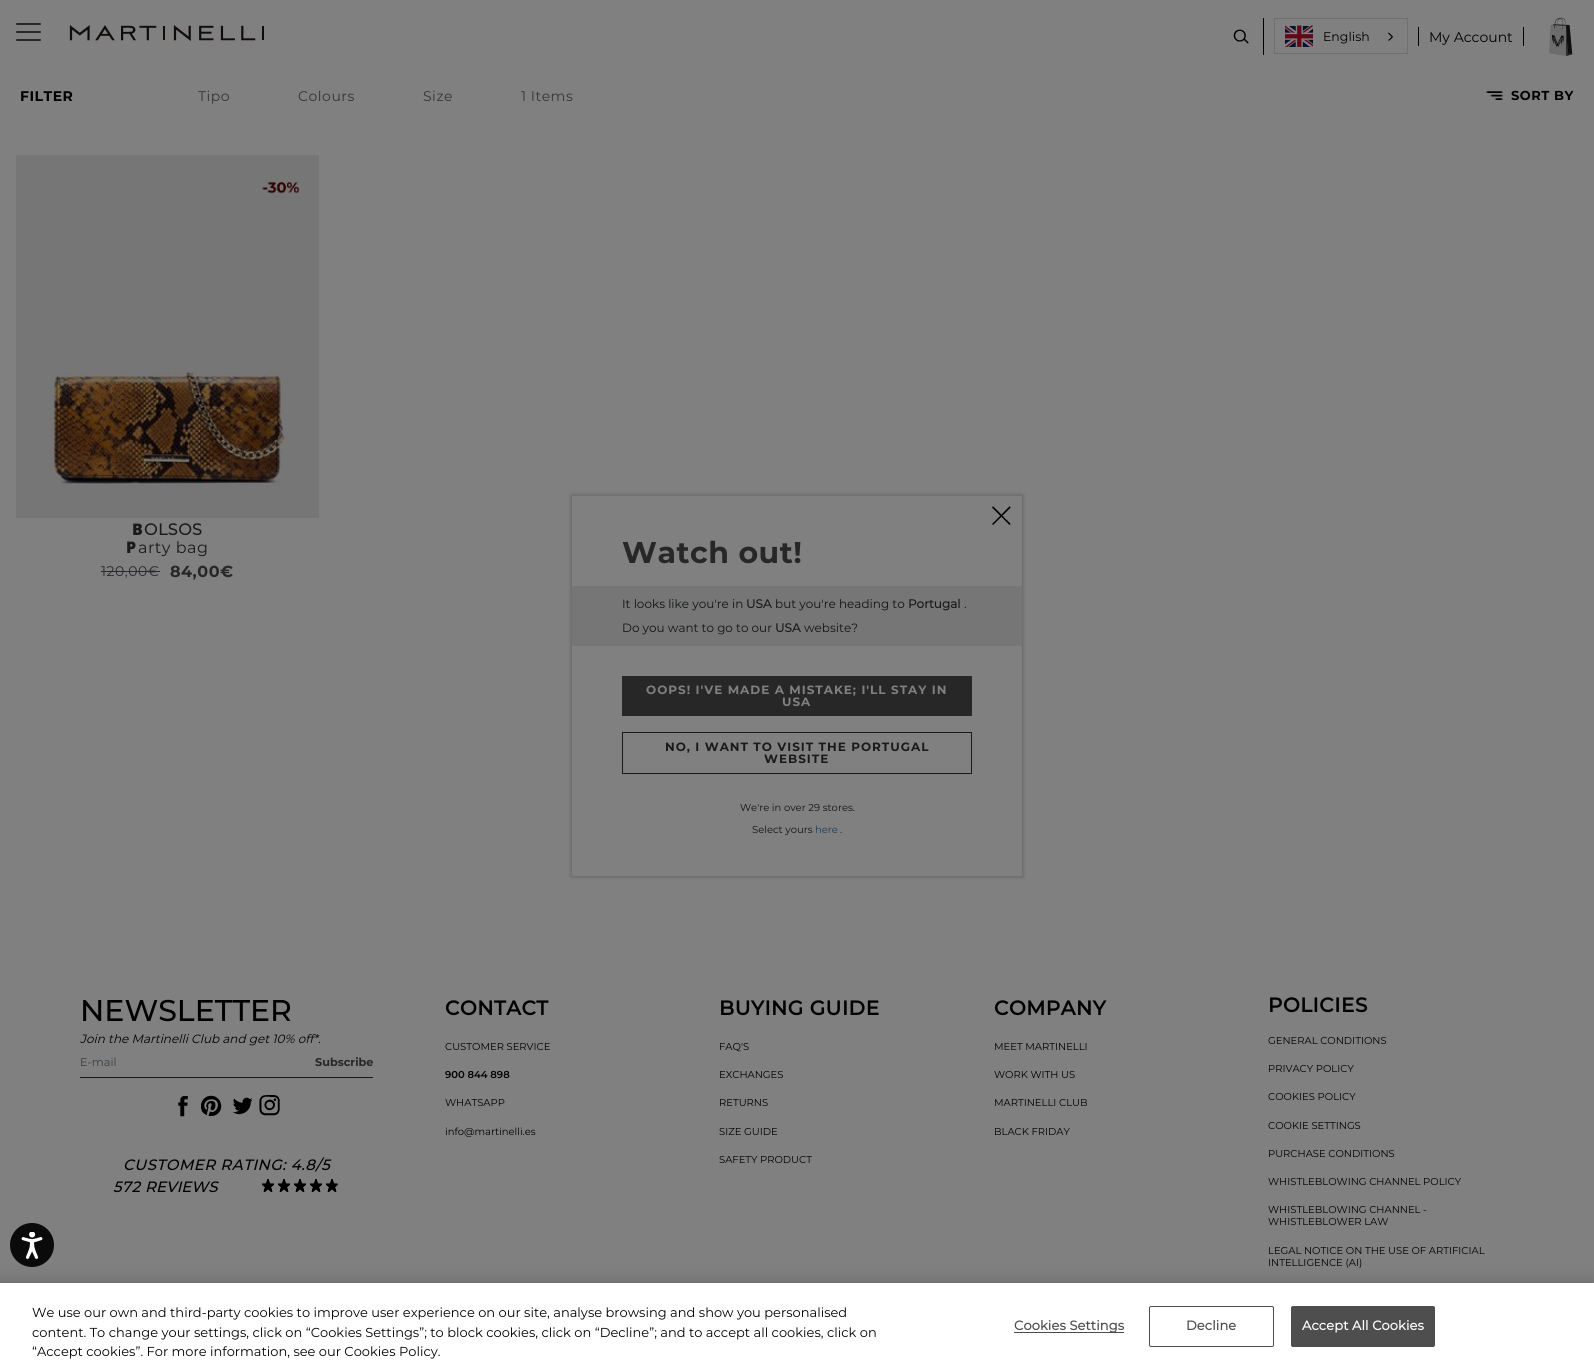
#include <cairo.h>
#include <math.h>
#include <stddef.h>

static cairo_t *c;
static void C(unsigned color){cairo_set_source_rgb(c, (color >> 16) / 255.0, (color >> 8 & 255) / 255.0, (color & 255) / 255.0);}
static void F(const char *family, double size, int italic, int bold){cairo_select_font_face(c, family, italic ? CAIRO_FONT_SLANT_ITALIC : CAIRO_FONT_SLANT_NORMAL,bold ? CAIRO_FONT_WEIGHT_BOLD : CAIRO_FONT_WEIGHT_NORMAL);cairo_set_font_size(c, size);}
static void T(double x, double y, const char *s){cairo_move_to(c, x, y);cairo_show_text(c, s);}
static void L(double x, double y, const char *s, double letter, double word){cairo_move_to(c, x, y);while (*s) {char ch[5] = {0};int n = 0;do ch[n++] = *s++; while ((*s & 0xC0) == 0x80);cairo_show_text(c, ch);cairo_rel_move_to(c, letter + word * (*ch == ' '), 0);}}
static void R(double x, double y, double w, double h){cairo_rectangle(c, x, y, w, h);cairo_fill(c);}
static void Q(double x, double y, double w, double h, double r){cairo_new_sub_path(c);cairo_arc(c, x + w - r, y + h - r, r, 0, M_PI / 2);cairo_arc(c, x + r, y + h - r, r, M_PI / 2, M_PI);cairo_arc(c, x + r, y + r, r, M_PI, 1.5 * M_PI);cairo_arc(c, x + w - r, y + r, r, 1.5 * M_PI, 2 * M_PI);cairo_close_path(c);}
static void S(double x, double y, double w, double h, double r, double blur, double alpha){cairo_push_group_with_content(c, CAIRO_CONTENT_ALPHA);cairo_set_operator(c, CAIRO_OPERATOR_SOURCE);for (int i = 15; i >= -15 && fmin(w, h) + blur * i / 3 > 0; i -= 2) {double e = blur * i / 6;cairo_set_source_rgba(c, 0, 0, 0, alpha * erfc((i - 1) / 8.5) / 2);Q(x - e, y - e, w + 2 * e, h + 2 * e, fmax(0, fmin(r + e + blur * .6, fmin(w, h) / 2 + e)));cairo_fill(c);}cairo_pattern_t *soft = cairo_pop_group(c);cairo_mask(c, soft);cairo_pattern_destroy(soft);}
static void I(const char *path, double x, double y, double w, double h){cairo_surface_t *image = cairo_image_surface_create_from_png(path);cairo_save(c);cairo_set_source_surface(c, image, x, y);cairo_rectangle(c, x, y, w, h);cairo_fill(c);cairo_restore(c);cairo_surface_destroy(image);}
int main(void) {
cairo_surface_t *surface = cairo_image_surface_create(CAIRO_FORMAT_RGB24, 1594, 1372);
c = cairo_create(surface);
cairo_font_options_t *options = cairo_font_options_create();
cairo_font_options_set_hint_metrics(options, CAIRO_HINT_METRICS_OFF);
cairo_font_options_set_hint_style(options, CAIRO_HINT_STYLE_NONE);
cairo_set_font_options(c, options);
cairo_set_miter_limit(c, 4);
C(0x808080);
cairo_paint(c);
C(0x272727);
Q(16,31,25,2,1);
cairo_fill(c);
Q(16,23,25,2,1);
cairo_fill(c);
Q(16,39,25,2,1);
cairo_fill(c);
I("1.png",69,25,195,16);
I("2.png",1233,29,16,15);
C(0x000000);
R(1263,18,1,37);
cairo_rectangle(c,1274.5,18.5,133,35);
C(0x707070);
cairo_set_line_width(c,1);
cairo_stroke(c);
I("3.png",1285,25,28,22);
F("Montserrat",12.5,0,0);
C(0x000000);
T(1323,41,"English");
I("4.png",1388,32,5,9);
R(1523,27,1,19);
R(1418,27,1,19);
F("Montserrat",14,0,0);
T(1429,42,"My Account");
I("5.png",1549,17,24,39);
F("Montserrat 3",14,0,1);
L(20,101,"FILTER",.5,0);
F("Montserrat",14,0,0);
C(0x383433);
L(198,101,"Tipo",.5,0);
L(298,101,"Colours",.5,0);
L(423,101,"Size",.5,0);
L(521,101,"1 Items",.5,0);
I("6.png",1486,91,17,9);
F("Montserrat 3",13,0,1);
C(0x000000);
L(1511,100,"SORT BY",.5,0);
I("7.png",16,155,303,363);
I("8.png",262,182,38,12);
F("Noto Sans Black",16,0,0);
C(0x1b1a19);
L(132,535,"B",.5,0);
F("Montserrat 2",16,0,1);
L(144,535,"OLSOS",.5,0);
F("Noto Sans Black",16,0,0);
L(126,553,"P",.5,0);
F("Montserrat",16,0,0);
L(138,553,"arty bag",.5,0);
F("Montserrat",14,0,0);
C(0x2a2931);
L(101,576,"120,00€",.5,0);
R(101,571,59,1);
F("Montserrat 3",16,0,1);
C(0x272727);
L(170,577,"84,00€",.5,0);
F("Montserrat Medium",30,0,0);
C(0x000000);
T(80,1021,"NEWSLETTER");
F("Montserrat",12,1,0);
T(80,1043,"Join the Martinelli Club and get 10% off*.");
C(0x1a1a1a);
R(80,1077,293,1);
F("Montserrat",11.25,0,0);
C(0x363b3f);
T(80,1066,"E-mail");
F("Montserrat 3",11.25,0,1);
C(0x272727);
T(315,1066,"Subscribe");
I("9.png",178,1096,10,21);
I("10.png",201,1095,21,21);
I("11.png",233,1097,19,18);
I("12.png",259,1095,21,21);
F("Montserrat Medium",15,1,0);
C(0x000000);
L(123,1170,"CUSTOMER RATING: 4.8/5",.5,0);
L(113,1192,"572",.5,0);
T(145,1192,"REVIEWS");
I("13.png",262,1179,76,13);
I("14.png",262,1179,75,13);
F("Montserrat",20,0,1);
L(445,1015,"CONTACT",.5,0);
F("Montserrat",10,0,0);
T(445,1050,"CUSTOMER SERVICE");
F("Montserrat SemiBold",10,0,0);
T(445,1078,"900 844 898");
F("Montserrat",10,0,0);
T(445,1106,"WHATSAPP");
T(445,1135,"info@martinelli.es");
F("Montserrat",20,0,1);
L(719,1015,"BUYING GUIDE",.5,0);
F("Montserrat",10,0,0);
T(719,1050,"FAQ'S");
T(719,1078,"EXCHANGES");
T(719,1106,"RETURNS");
T(719,1135,"SIZE GUIDE");
T(719,1163,"SAFETY PRODUCT");
F("Montserrat",20,0,1);
L(994,1015,"COMPANY",.5,0);
F("Montserrat",10,0,0);
T(994,1050,"MEET MARTINELLI");
T(994,1078,"WORK WITH US");
T(994,1106,"MARTINELLI CLUB");
T(994,1135,"BLACK FRIDAY");
F("Montserrat",20,0,1);
L(1268,1012,"POLICIES",.5,0);
F("Montserrat",10,0,0);
T(1268,1044,"GENERAL CONDITIONS");
T(1268,1072,"PRIVACY POLICY");
T(1268,1100,"COOKIES POLICY");
T(1268,1129,"COOKIE SETTINGS");
T(1268,1157,"PURCHASE CONDITIONS");
T(1268,1185,"WHISTLEBLOWING CHANNEL POLICY");
T(1268,1213,"WHISTLEBLOWING CHANNEL -");
T(1268,1225,"WHISTLEBLOWER LAW");
T(1268,1254,"LEGAL NOTICE ON THE USE OF ARTIFICIAL");
T(1268,1266,"INTELLIGENCE (AI)");
cairo_save(c);
cairo_set_fill_rule(c,CAIRO_FILL_RULE_EVEN_ODD);
cairo_new_path(c);
cairo_move_to(c,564,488);
cairo_line_to(c,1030,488);
cairo_line_to(c,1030,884);
cairo_line_to(c,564,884);
cairo_close_path(c);
cairo_move_to(c,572,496);
cairo_line_to(c,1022,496);
cairo_line_to(c,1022,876);
cairo_line_to(c,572,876);
cairo_close_path(c);
cairo_clip(c);
C(0x171717);
S(571,495,452,382,0,2,.25);
cairo_restore(c);
I("15.png",992,506,19,19);
F("Montserrat 3",30,0,1);
C(0x272727);
L(622,563,"Watch out!",.5,0);
C(0x767676);
R(572,586,450,60);
F("Montserrat",12,0,0);
C(0x111315);
T(622,608,"It looks like you're in");
F("Montserrat 2",12,0,1);
C(0x1b1a19);
T(746,608,"USA");
F("Montserrat",12,0,0);
C(0x111315);
T(775,608,"but you're heading to");
F("Montserrat 2",12,0,1);
C(0x1b1a19);
T(908,608,"Portugal");
F("Montserrat",12,0,0);
C(0x111315);
T(964,608,".");
T(622,632,"Do you want to go to our");
F("Montserrat 2",12,0,1);
C(0x1b1a19);
T(775,632,"USA");
F("Montserrat",12,0,0);
C(0x111315);
T(804,632,"website?");
C(0x272727);
R(622,676,350,40);
F("Montserrat 3",12,0,1);
C(0x808080);
L(646,694,"OOPS! I'VE MADE A MISTAKE; I'LL STAY IN",1,0);
L(782,706,"USA",1,0);
cairo_rectangle(c,622.5,732.5,349,41);
C(0x1b1a19);
cairo_stroke(c);
L(665,751,"NO, I WANT TO VISIT THE PORTUGAL",1,0);
L(764,763,"WEBSITE",1,0);
F("Montserrat",10,0,0);
C(0x111315);
T(740,811,"We're in over 29 stores.");
T(752,833,"Select yours");
C(0x1a3d5c);
T(815,833,"here");
C(0x111315);
T(840,833,".");
C(0x0a0a0a);
cairo_new_path(c);
cairo_arc(c,32,1245,22,0,2 * M_PI);
cairo_fill(c);
I("16.png",21,1232,22,27);
C(0x000000);
S(0,1283,1594,89,0,9,.2);
C(0xffffff);
R(0,1283,1594,89);
F("Montserrat",13,0,0);
C(0x000000);
T(32,1317,"We use our own and third-party cookies to improve user experience on our site, analyse browsing and show you personalised");
T(32,1337,"content. To change your settings, click on “Cookies Settings”; to block cookies, click on “Decline”; and to accept all cookies, click on");
T(32,1356,"“Accept cookies”. For more information, see our Cookies Policy.");
C(0x4e4e4e);
R(1014,1332,110,1);
F("Montserrat 2",13,0,1);
L(1014,1330,"Cookies Settings",.1,0);
Q(1149.5,1306.5,124,40,1.5);
cairo_stroke(c);
L(1186,1330,"Decline",.1,0);
Q(1291.5,1306.5,143,40,1.5);
cairo_fill_preserve(c);
cairo_stroke(c);
C(0xffffff);
L(1302,1330,"Accept All Cookies",.1,0);
cairo_surface_write_to_png(surface, "o.png");
cairo_font_options_destroy(options);
cairo_destroy(c);
cairo_surface_destroy(surface);
return 0;
}
